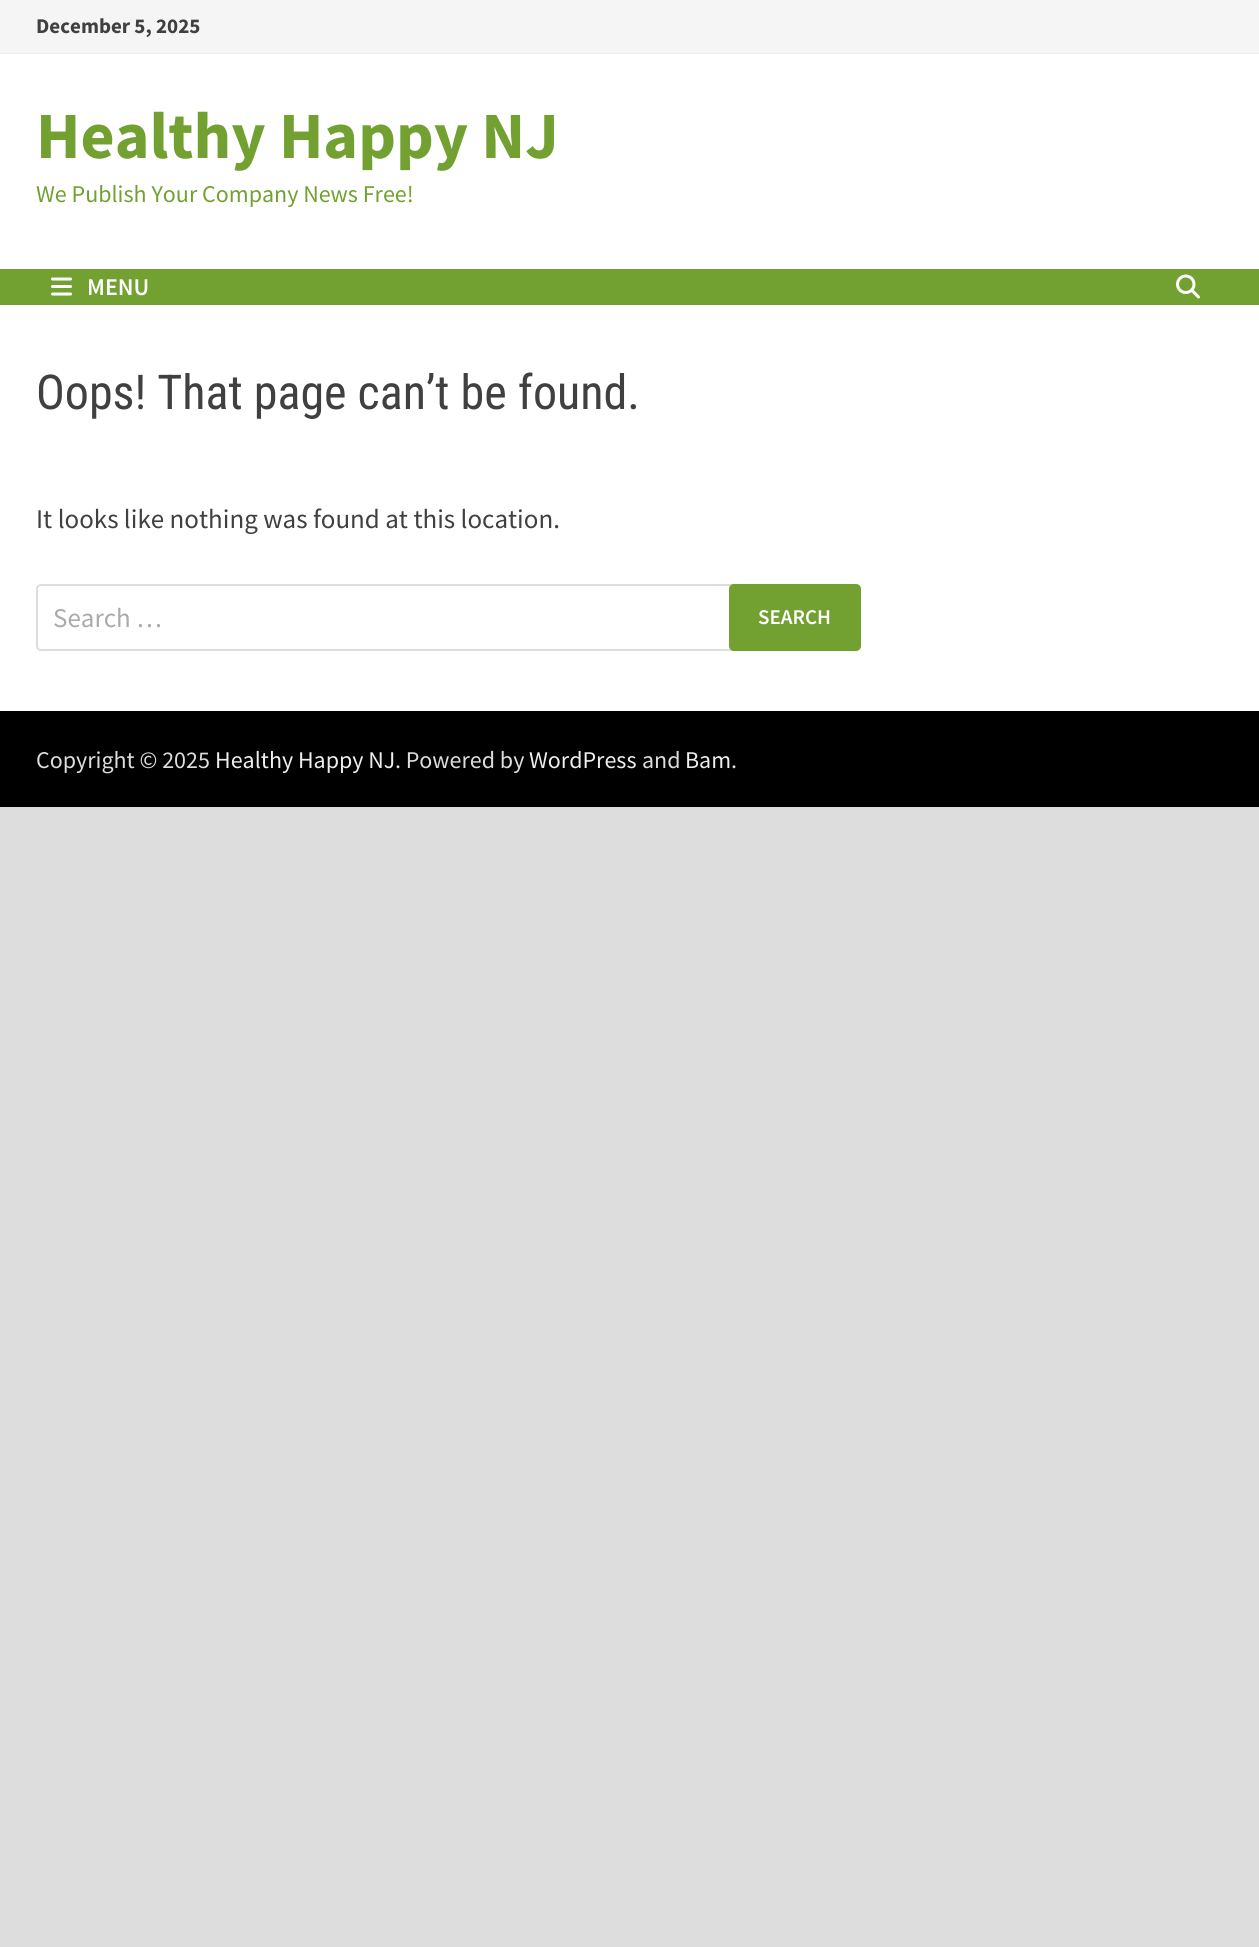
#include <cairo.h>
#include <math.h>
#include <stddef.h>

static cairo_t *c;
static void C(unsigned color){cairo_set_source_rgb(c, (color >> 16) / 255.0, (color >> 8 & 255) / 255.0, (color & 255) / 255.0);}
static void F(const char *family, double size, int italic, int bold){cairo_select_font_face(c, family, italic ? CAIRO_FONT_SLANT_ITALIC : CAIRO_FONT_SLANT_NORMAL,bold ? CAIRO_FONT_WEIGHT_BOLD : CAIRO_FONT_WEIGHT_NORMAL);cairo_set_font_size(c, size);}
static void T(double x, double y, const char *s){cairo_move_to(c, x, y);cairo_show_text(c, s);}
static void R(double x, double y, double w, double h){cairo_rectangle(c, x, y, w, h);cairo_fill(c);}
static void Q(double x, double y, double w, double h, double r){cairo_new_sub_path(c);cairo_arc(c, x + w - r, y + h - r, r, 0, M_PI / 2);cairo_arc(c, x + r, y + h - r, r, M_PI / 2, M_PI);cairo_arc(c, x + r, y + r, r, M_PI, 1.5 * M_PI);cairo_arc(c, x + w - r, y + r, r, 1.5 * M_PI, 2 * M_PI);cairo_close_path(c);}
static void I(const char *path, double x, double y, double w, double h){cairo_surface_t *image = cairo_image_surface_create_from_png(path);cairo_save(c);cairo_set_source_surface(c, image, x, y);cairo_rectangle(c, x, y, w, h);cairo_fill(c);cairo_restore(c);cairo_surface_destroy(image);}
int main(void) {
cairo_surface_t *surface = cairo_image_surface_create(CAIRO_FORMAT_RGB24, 1259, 1947);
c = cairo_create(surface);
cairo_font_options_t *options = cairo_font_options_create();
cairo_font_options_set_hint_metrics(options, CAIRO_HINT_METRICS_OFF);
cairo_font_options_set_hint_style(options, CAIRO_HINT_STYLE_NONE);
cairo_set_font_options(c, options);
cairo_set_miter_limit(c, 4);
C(0xdddddd);
cairo_paint(c);
C(0xffffff);
R(0,305,1259,406);
C(0xf5f5f5);
R(0,0,1259,53);
C(0xeeeeee);
R(0,53,1259,1);
F("Source Sans Pro",21,0,1);
C(0x404040);
T(36,33,"December 5, 2025");
C(0xffffff);
R(0,54,1259,215);
F("Source Sans Pro",66,0,1);
C(0x72a031);
T(36,158,"Healthy Happy NJ");
F("Source Sans Pro",24,0,0);
T(36,202,"We Publish Your Company News Free!");
R(0,269,1259,36);
I("1.png",51,277,21,19);
F("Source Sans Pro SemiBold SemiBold",24,0,0);
C(0xffffff);
T(87,295,"MENU");
I("2.png",1176,274,24,25);
F("Roboto Condensed",48,0,0);
C(0x404040);
T(36,409,"Oops! That page can’t be found.");
F("Source Sans Pro",27,0,0);
T(36,528,"It looks like nothing was found at this location.");
Q(37,585,823,65,4);
C(0xdddddd);
cairo_stroke(c);
C(0xaaaaaa);
T(53,627,"Search …");
C(0x72a031);
Q(729,584,132,67,5);
cairo_fill(c);
F("Source Sans Pro SemiBold SemiBold",21,0,0);
C(0xffffff);
T(758,624,"SEARCH");
C(0x000000);
R(0,711,1259,96);
F("Source Sans Pro",24,0,0);
C(0xdddddd);
T(36,768,"Copyright © 2025");
C(0xeeeeee);
T(215,768,"Healthy Happy NJ");
C(0xdddddd);
T(395,768,". Powered by");
C(0xeeeeee);
T(529,768,"WordPress");
C(0xdddddd);
T(642,768,"and");
C(0xeeeeee);
T(685,768,"Bam");
C(0xdddddd);
T(731,768,".");
cairo_surface_write_to_png(surface, "o.png");
cairo_font_options_destroy(options);
cairo_destroy(c);
cairo_surface_destroy(surface);
return 0;
}
